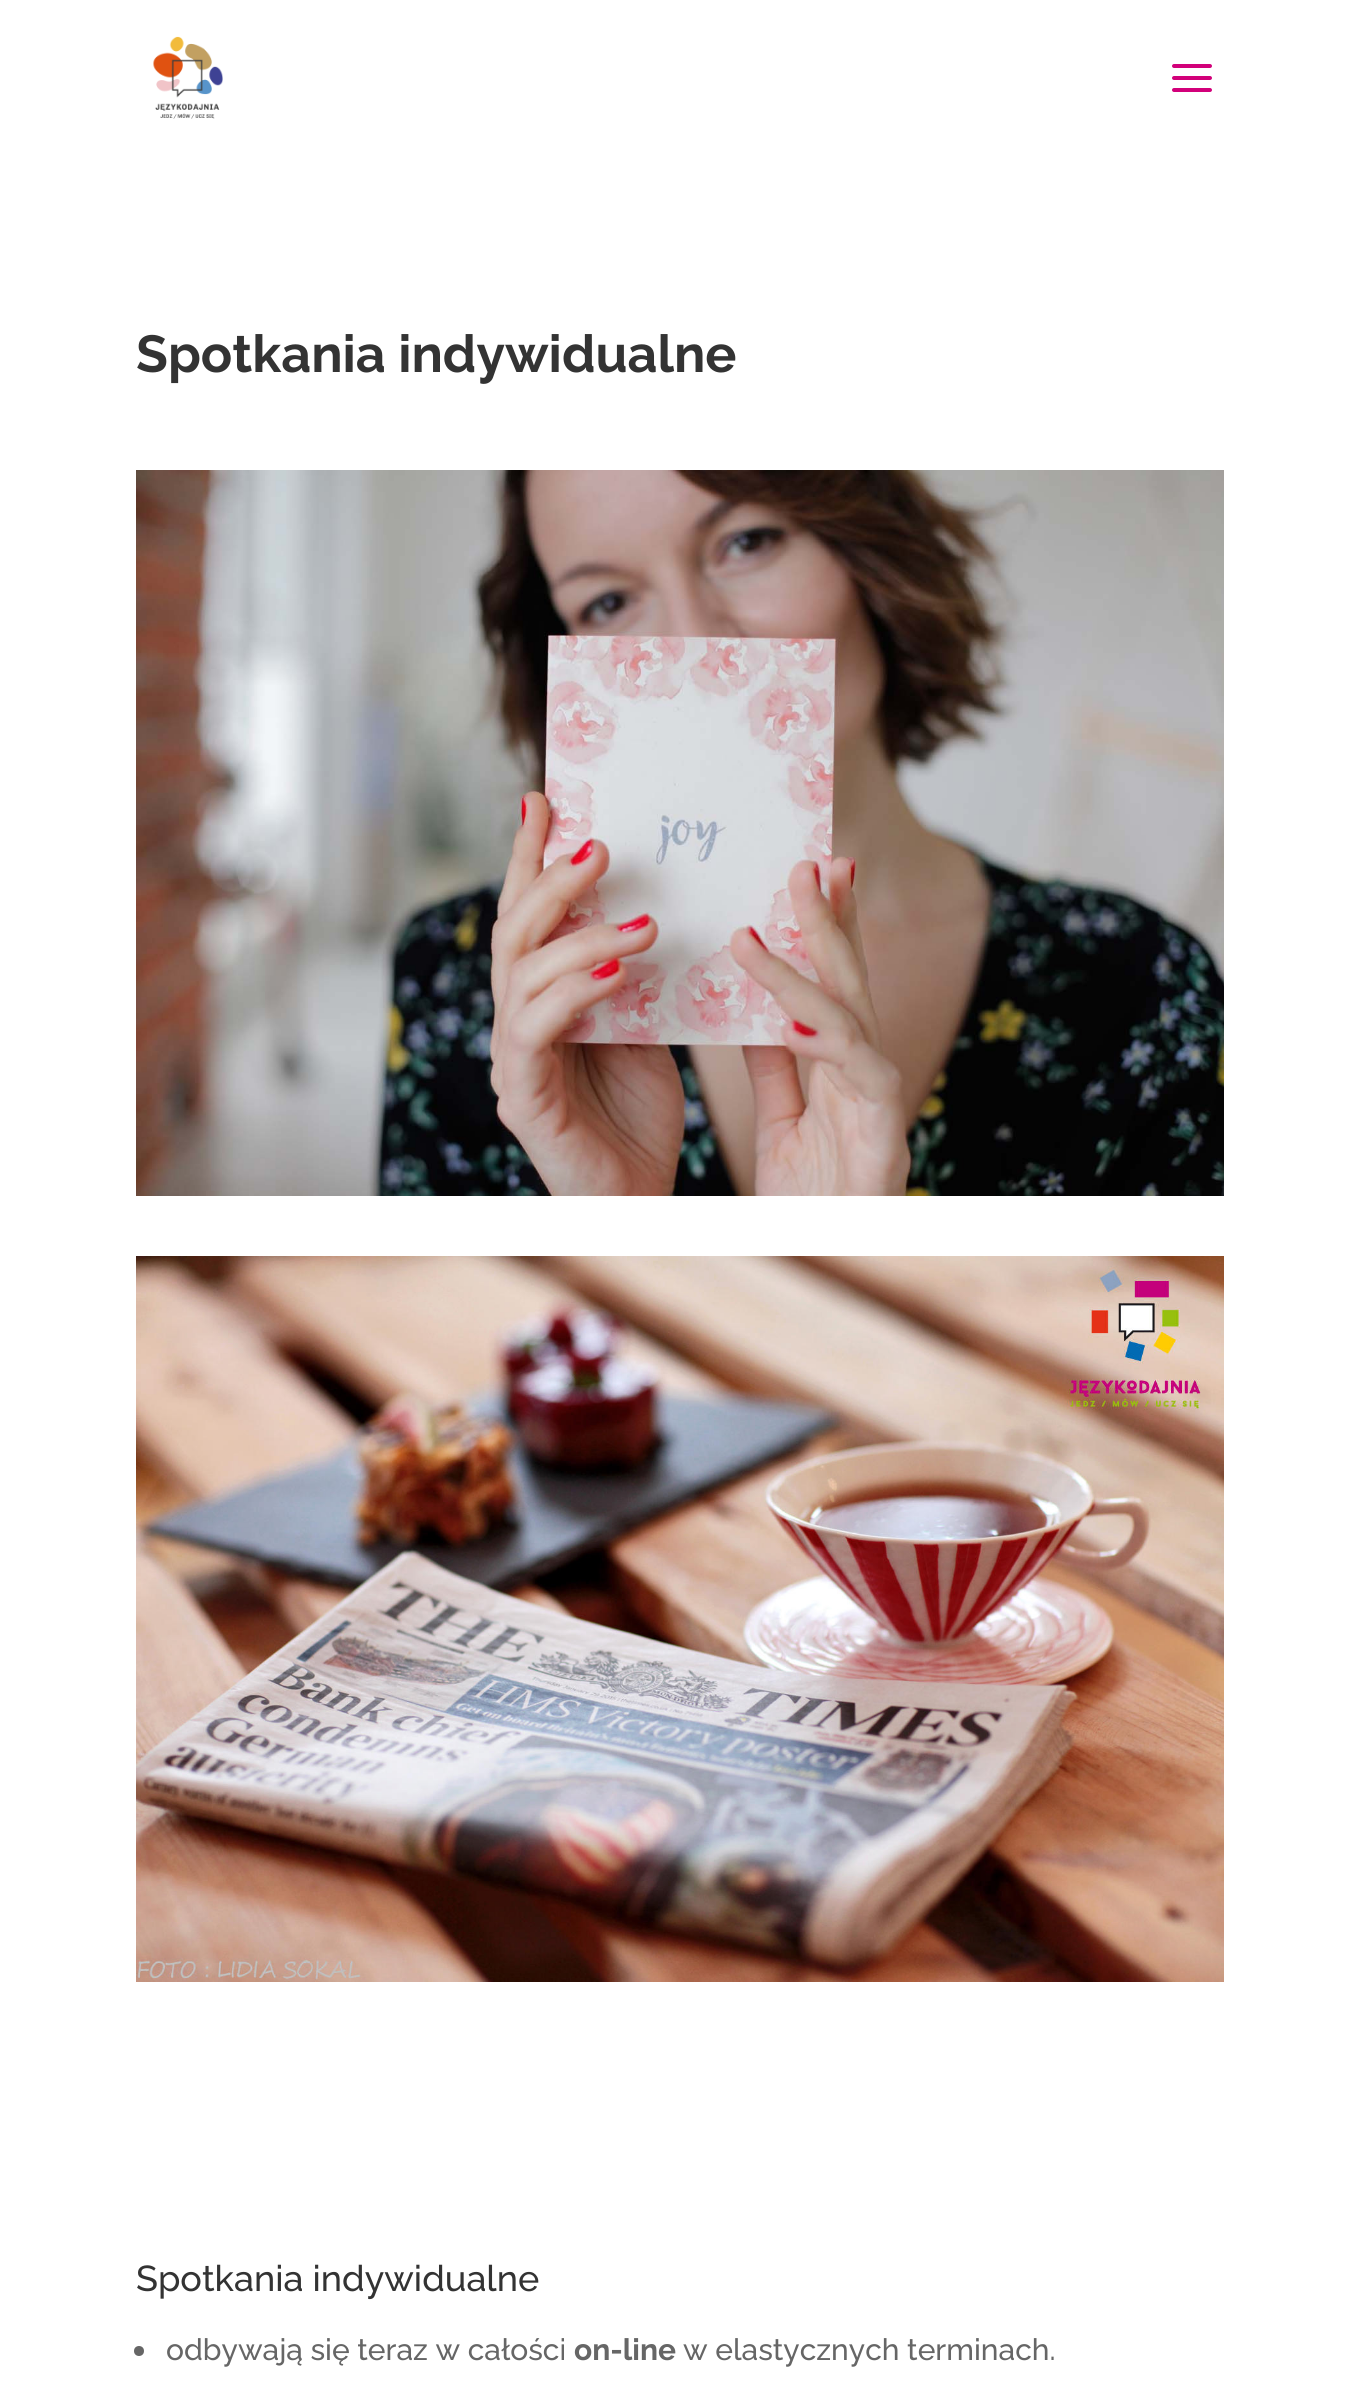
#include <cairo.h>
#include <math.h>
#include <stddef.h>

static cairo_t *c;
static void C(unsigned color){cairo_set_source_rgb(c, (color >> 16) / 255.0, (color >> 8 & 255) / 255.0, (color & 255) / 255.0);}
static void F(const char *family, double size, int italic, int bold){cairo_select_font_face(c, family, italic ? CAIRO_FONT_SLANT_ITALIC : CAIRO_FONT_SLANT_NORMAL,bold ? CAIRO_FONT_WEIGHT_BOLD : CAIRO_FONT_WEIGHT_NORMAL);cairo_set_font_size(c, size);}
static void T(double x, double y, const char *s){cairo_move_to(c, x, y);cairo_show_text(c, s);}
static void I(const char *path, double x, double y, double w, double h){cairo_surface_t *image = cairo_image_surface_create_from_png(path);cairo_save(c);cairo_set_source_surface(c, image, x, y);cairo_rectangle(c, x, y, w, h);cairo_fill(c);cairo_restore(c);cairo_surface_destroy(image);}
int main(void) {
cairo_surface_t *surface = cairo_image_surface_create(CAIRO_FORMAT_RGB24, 1359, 2398);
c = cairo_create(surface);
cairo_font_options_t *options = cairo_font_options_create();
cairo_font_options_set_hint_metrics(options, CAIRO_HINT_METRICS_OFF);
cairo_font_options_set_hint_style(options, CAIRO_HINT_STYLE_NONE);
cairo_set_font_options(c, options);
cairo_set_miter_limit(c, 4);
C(0xffffff);
cairo_paint(c);
I("1.png",153,36,70,83);
I("2.png",1172,64,40,28);
F("Raleway",52,0,1);
C(0x333333);
T(136,372,"Spotkania indywidualne");
I("3.png",136,470,1088,726);
I("4.png",136,1256,1088,726);
F("Raleway Medium",36,0,0);
T(136,2291,"Spotkania indywidualne");
C(0x666666);
cairo_new_path(c);
cairo_arc(c,139,2351,5,0,2 * M_PI);
cairo_fill(c);
F("Raleway Medium",30,0,0);
T(166,2360,"odbywają się teraz w całości");
F("Raleway",30,0,1);
T(574,2360,"on-line");
F("Raleway Medium",30,0,0);
T(683,2360,"w elastycznych terminach.");
cairo_surface_write_to_png(surface, "o.png");
cairo_font_options_destroy(options);
cairo_destroy(c);
cairo_surface_destroy(surface);
return 0;
}
